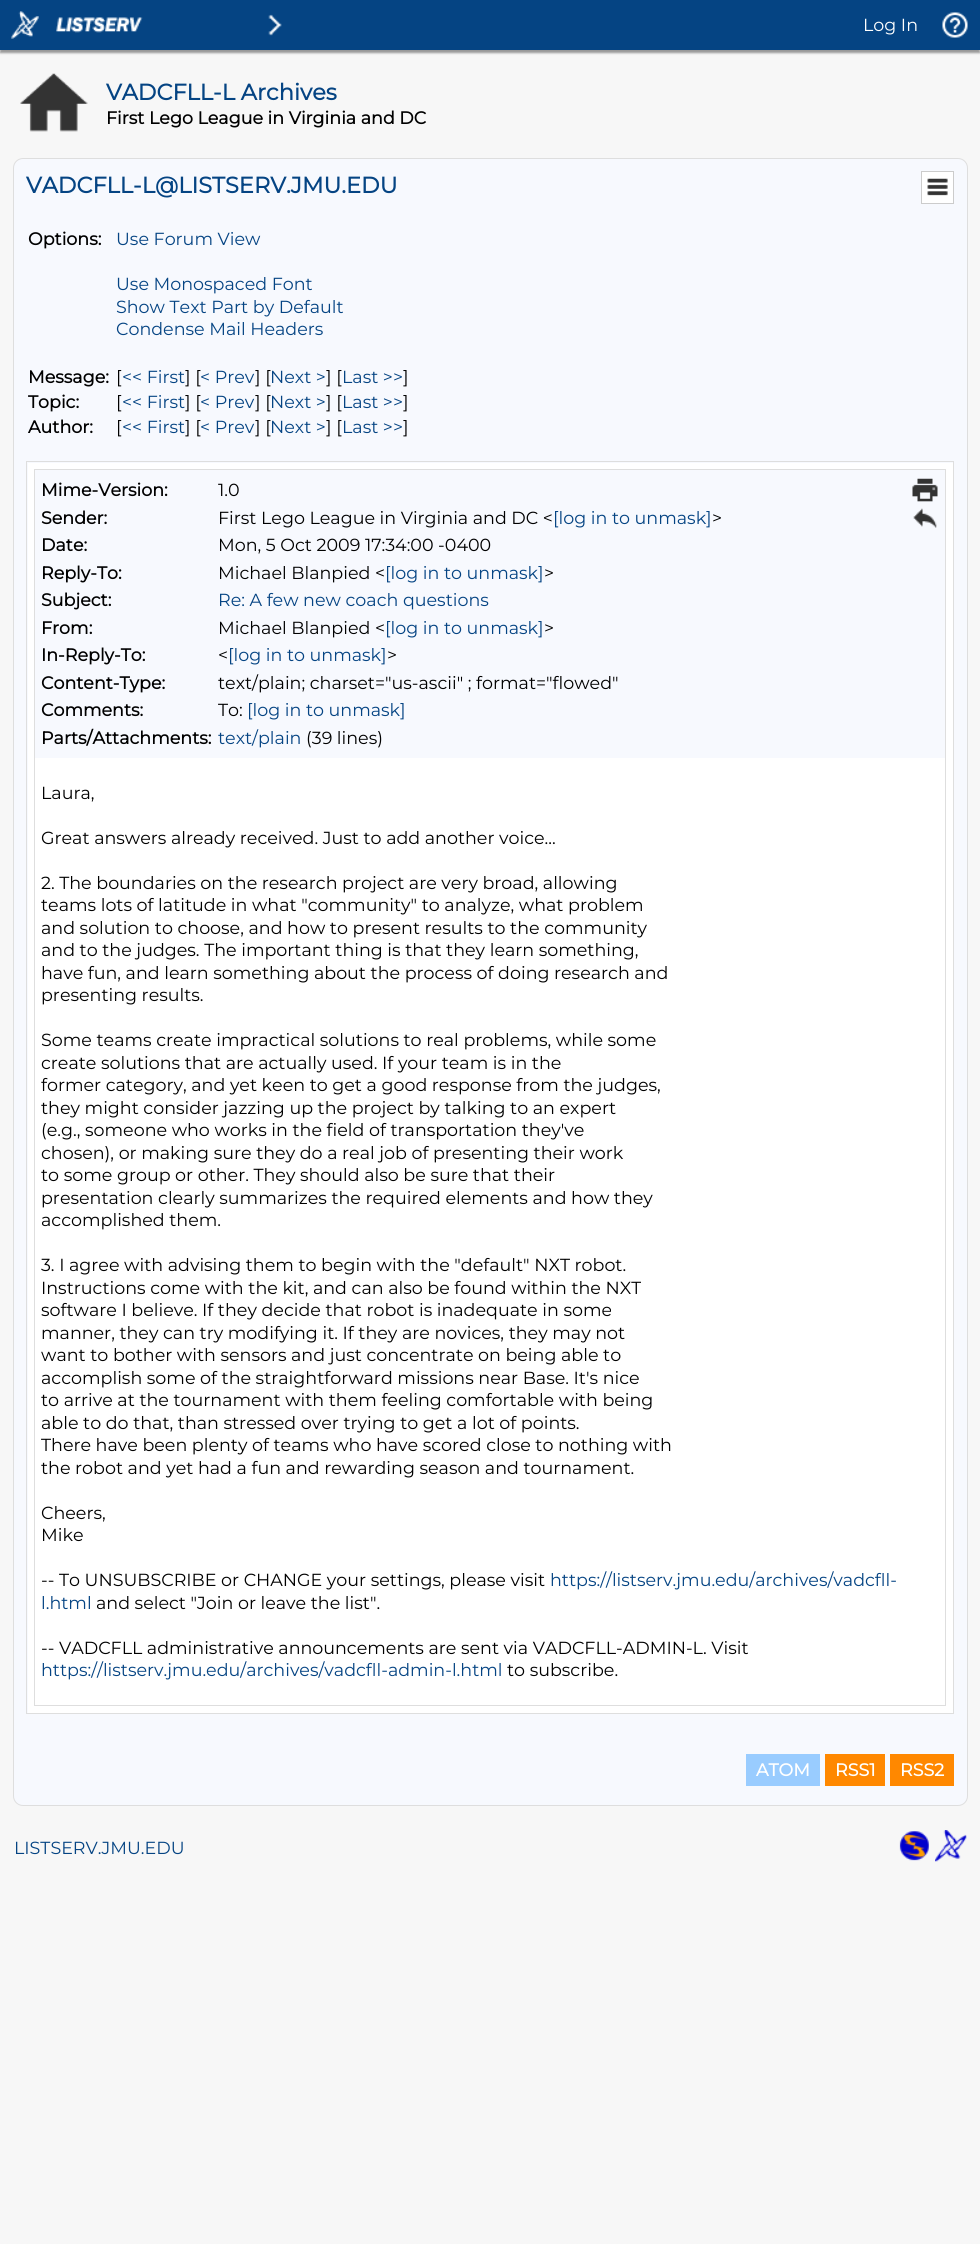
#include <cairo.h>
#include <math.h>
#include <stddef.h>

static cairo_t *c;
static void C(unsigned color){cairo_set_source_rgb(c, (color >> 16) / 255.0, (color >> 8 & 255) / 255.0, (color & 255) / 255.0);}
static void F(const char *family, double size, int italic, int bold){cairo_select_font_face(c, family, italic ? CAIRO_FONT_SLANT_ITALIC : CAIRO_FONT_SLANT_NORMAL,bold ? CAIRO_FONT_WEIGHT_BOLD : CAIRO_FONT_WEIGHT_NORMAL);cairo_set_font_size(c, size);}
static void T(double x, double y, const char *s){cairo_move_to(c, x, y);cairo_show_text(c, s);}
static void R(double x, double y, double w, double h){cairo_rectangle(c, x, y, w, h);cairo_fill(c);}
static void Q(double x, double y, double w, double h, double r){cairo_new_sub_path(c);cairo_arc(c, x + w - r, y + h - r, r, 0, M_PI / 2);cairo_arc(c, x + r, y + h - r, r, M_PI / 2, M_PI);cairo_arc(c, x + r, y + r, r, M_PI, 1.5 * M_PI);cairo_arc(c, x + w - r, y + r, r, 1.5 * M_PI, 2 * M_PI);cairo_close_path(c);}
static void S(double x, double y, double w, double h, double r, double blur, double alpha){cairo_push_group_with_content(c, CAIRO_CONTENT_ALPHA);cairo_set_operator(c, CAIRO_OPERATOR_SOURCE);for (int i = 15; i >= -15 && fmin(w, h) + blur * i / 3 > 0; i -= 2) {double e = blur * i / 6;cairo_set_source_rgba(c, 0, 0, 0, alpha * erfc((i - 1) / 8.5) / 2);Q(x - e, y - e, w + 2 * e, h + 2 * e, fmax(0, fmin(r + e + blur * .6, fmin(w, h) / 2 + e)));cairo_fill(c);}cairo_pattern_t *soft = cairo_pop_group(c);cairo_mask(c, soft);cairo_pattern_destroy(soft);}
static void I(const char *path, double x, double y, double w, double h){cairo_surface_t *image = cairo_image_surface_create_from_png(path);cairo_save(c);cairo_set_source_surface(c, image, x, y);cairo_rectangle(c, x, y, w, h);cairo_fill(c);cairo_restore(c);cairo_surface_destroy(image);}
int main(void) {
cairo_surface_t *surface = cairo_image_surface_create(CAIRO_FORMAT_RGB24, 980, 2244);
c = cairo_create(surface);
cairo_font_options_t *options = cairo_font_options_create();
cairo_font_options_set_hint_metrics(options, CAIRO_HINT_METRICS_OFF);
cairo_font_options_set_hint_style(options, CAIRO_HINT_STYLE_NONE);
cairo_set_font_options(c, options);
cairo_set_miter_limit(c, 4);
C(0xf7f7f7);
cairo_paint(c);
C(0x999999);
S(0,3,980,50,0,1,1);
C(0x054483);
R(0,0,980,50);
I("1.png",11,11,28,28);
I("2.png",56,17,87,16);
I("3.png",268,14,14,22);
F("Montserrat Thin",17.5,0,0);
C(0xffffff);
T(863,31,"Log In");
I("4.png",942,12,26,26);
I("5.png",20,73,68,59);
F("Montserrat",22.5,0,1);
C(0x054483);
T(106,100,"VADCFLL-L Archives");
F("Montserrat",17.5,0,1);
C(0x000000);
T(106,124,"First Lego League in Virginia and DC");
C(0xf7f9fe);
Q(13.5,158.5,954,1647,9.5);
cairo_fill_preserve(c);
C(0xdedede);
cairo_set_line_width(c,1);
cairo_stroke(c);
F("Montserrat",22.5,0,1);
C(0x054483);
T(26,193,"VADCFLL-L@LISTSERV.JMU.EDU");
C(0xffffff);
cairo_rectangle(c,921.5,171.5,32,32);
cairo_fill_preserve(c);
C(0xcccccc);
cairo_stroke(c);
I("6.png",927,178,21,18);
F("Montserrat",17.5,0,1);
C(0x000000);
T(28,245,"Options:");
F("Montserrat Thin",17.5,0,0);
C(0x054483);
T(116,245,"Use Forum View");
T(116,290,"Use Monospaced Font");
T(116,313,"Show Text Part by Default");
T(116,335,"Condense Mail Headers");
F("Montserrat",17.5,0,1);
C(0x000000);
T(28,383,"Message:");
F("Montserrat Thin",17.5,0,0);
T(116,383,"[");
C(0x054483);
T(122,383,"<< First");
C(0x000000);
T(185,383,"] [");
C(0x054483);
T(200,383,"< Prev");
C(0x000000);
T(255,383,"] [");
C(0x054483);
T(270,383,"Next >");
C(0x000000);
T(326,383,"] [");
C(0x054483);
T(342,383,"Last >>");
C(0x000000);
T(403,383,"]");
F("Montserrat",17.5,0,1);
T(28,408,"Topic:");
F("Montserrat Thin",17.5,0,0);
T(116,408,"[");
C(0x054483);
T(122,408,"<< First");
C(0x000000);
T(185,408,"] [");
C(0x054483);
T(200,408,"< Prev");
C(0x000000);
T(255,408,"] [");
C(0x054483);
T(270,408,"Next >");
C(0x000000);
T(326,408,"] [");
C(0x054483);
T(342,408,"Last >>");
C(0x000000);
T(403,408,"]");
F("Montserrat",17.5,0,1);
T(28,433,"Author:");
F("Montserrat Thin",17.5,0,0);
T(116,433,"[");
C(0x054483);
T(122,433,"<< First");
C(0x000000);
T(185,433,"] [");
C(0x054483);
T(200,433,"< Prev");
C(0x000000);
T(255,433,"] [");
C(0x054483);
T(270,433,"Next >");
C(0x000000);
T(326,433,"] [");
C(0x054483);
T(342,433,"Last >>");
C(0x000000);
T(403,433,"]");
cairo_rectangle(c,26.5,461.5,927,1252);
C(0xdedede);
cairo_stroke(c);
C(0xffffff);
R(28,463,925,1250);
cairo_rectangle(c,34.5,469.5,911,1236);
C(0xdedede);
cairo_stroke(c);
C(0xf7f9fe);
R(35,470,910,288);
F("Montserrat",17.5,0,1);
C(0x000000);
T(41,496,"Mime-Version:");
F("Montserrat Thin",17.5,0,0);
T(218,496,"1.0");
F("Montserrat",17.5,0,1);
T(41,524,"Sender:");
F("Montserrat Thin",17.5,0,0);
T(218,524,"First Lego League in Virginia and DC <");
C(0x054483);
T(553,524,"[log in to unmask]");
C(0x000000);
T(712,524,">");
F("Montserrat",17.5,0,1);
T(41,551,"Date:");
F("Montserrat Thin",17.5,0,0);
T(218,551,"Mon, 5 Oct 2009 17:34:00 -0400");
F("Montserrat",17.5,0,1);
T(41,579,"Reply-To:");
F("Montserrat Thin",17.5,0,0);
T(218,579,"Michael Blanpied <");
C(0x054483);
T(385,579,"[log in to unmask]");
C(0x000000);
T(544,579,">");
F("Montserrat",17.5,0,1);
T(41,606,"Subject:");
F("Montserrat Thin",17.5,0,0);
C(0x054483);
T(218,606,"Re: A few new coach questions");
F("Montserrat",17.5,0,1);
C(0x000000);
T(41,634,"From:");
F("Montserrat Thin",17.5,0,0);
T(218,634,"Michael Blanpied <");
C(0x054483);
T(385,634,"[log in to unmask]");
C(0x000000);
T(544,634,">");
F("Montserrat",17.5,0,1);
T(41,661,"In-Reply-To:");
F("Montserrat Thin",17.5,0,0);
T(218,661,"<");
C(0x054483);
T(228,661,"[log in to unmask]");
C(0x000000);
T(387,661,">");
F("Montserrat",17.5,0,1);
T(41,689,"Content-Type:");
F("Montserrat Thin",17.5,0,0);
T(218,689,"text/plain; charset=\"us-ascii\" ; format=\"flowed\"");
F("Montserrat",17.5,0,1);
T(41,716,"Comments:");
F("Montserrat Thin",17.5,0,0);
T(218,716,"To:");
C(0x054483);
T(247,716,"[log in to unmask]");
F("Montserrat",17.5,0,1);
C(0x000000);
T(41,744,"Parts/Attachments:");
F("Montserrat Thin",17.5,0,0);
C(0x054483);
T(218,744,"text/plain");
C(0x000000);
T(306,744,"(39 lines)");
I("7.png",912,478,26,24);
I("8.png",913,508,24,20);
T(41,799,"Laura,");
T(41,844,"Great answers already received. Just to add another voice...");
T(41,889,"2. The boundaries on the research project are very broad, allowing");
T(41,911,"teams lots of latitude in what \"community\" to analyze, what problem");
T(41,934,"and solution to choose, and how to present results to the community");
T(41,956,"and to the judges. The important thing is that they learn something,");
T(41,979,"have fun, and learn something about the process of doing research and");
T(41,1001,"presenting results.");
T(41,1046,"Some teams create impractical solutions to real problems, while some");
T(41,1069,"create solutions that are actually used. If your team is in the");
T(41,1091,"former category, and yet keen to get a good response from the judges,");
T(41,1114,"they might consider jazzing up the project by talking to an expert");
T(41,1136,"(e.g., someone who works in the field of transportation they've");
T(41,1159,"chosen), or making sure they do a real job of presenting their work");
T(41,1181,"to some group or other. They should also be sure that their");
T(41,1204,"presentation clearly summarizes the required elements and how they");
T(41,1226,"accomplished them.");
T(41,1271,"3. I agree with advising them to begin with the \"default\" NXT robot.");
T(41,1294,"Instructions come with the kit, and can also be found within the NXT");
T(41,1316,"software I believe. If they decide that robot is inadequate in some");
T(41,1339,"manner, they can try modifying it. If they are novices, they may not");
T(41,1361,"want to bother with sensors and just concentrate on being able to");
T(41,1384,"accomplish some of the straightforward missions near Base. It's nice");
T(41,1406,"to arrive at the tournament with them feeling comfortable with being");
T(41,1429,"able to do that, than stressed over trying to get a lot of points.");
T(41,1451,"There have been plenty of teams who have scored close to nothing with");
T(41,1474,"the robot and yet had a fun and rewarding season and tournament.");
T(41,1519,"Cheers,");
T(41,1541,"Mike");
T(41,1586,"-- To UNSUBSCRIBE or CHANGE your settings, please visit");
C(0x054483);
T(550,1586,"https://listserv.jmu.edu/archives/vadcfll-");
T(41,1609,"l.html");
C(0x000000);
T(96,1609,"and select \"Join or leave the list\".");
T(41,1654,"-- VADCFLL administrative announcements are sent via VADCFLL-ADMIN-L. Visit");
C(0x054483);
T(41,1676,"https://listserv.jmu.edu/archives/vadcfll-admin-l.html");
C(0x000000);
T(507,1676,"to subscribe.");
C(0x99ccff);
R(746,1754,74,32);
F("Montserrat",17.5,0,1);
C(0xffffff);
T(756,1776,"ATOM");
C(0xff8800);
R(825,1754,60,32);
C(0xffffff);
T(835,1776,"RSS1");
C(0xff8800);
R(890,1754,64,32);
C(0xffffff);
T(900,1776,"RSS2");
F("Montserrat Thin",17.5,0,0);
C(0x054483);
T(14,1854,"LISTSERV.JMU.EDU");
I("9.png",899,1831,30,30);
I("10.png",935,1830,32,32);
cairo_surface_write_to_png(surface, "o.png");
cairo_font_options_destroy(options);
cairo_destroy(c);
cairo_surface_destroy(surface);
return 0;
}
